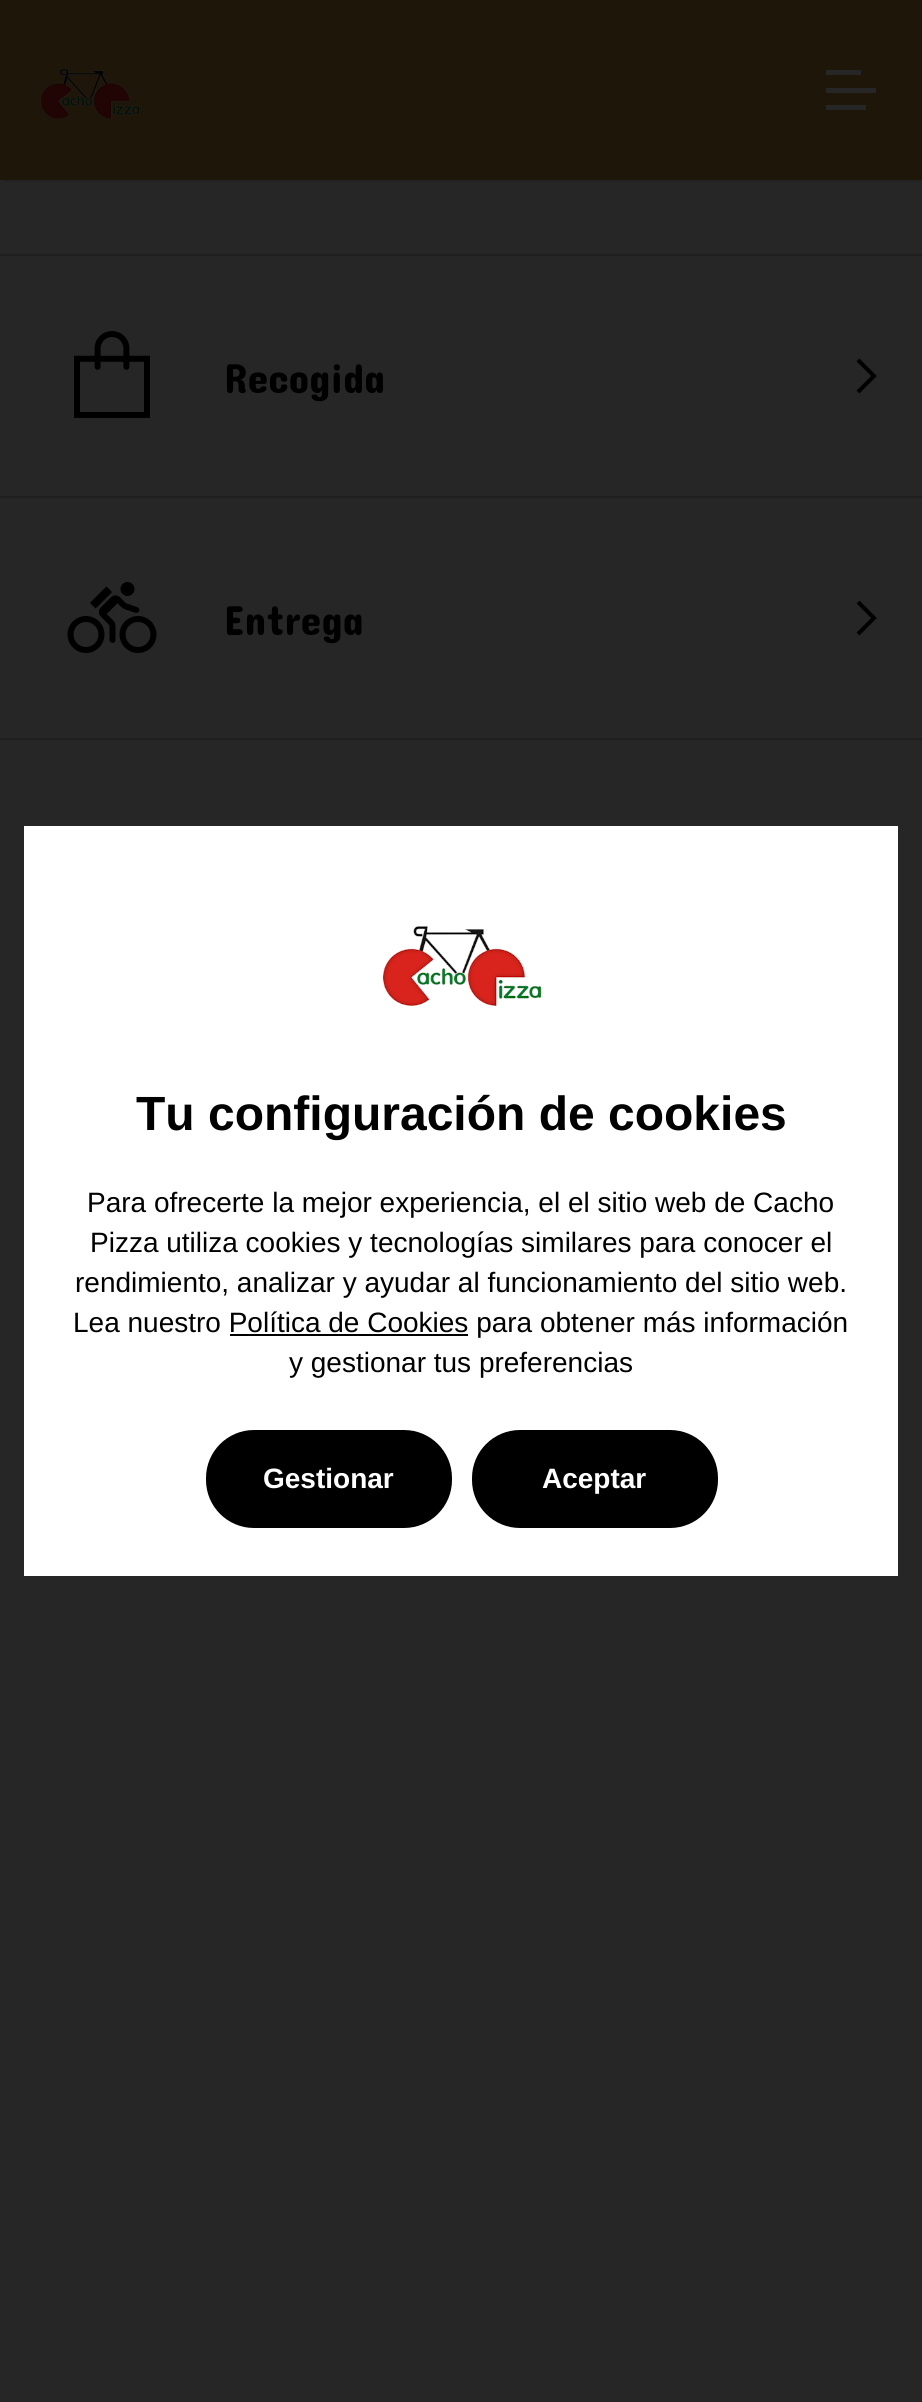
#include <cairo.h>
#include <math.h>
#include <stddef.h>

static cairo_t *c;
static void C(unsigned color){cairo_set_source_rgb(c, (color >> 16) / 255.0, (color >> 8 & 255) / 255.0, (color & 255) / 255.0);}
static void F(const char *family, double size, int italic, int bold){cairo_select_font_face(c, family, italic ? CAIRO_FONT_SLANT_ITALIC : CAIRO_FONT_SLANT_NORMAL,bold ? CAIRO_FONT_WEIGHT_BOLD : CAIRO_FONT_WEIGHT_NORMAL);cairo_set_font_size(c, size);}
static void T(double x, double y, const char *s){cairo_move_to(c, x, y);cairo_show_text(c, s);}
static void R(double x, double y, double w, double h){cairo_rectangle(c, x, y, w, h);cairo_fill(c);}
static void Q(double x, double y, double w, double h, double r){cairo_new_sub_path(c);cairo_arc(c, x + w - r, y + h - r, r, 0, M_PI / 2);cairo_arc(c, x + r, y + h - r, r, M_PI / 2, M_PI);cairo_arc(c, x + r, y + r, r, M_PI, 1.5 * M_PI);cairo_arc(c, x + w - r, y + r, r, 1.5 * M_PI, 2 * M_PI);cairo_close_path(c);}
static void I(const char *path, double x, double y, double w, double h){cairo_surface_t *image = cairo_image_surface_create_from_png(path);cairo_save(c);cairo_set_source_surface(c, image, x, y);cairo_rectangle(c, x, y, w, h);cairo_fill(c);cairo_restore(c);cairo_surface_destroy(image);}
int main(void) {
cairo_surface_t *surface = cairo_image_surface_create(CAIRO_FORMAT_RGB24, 922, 2402);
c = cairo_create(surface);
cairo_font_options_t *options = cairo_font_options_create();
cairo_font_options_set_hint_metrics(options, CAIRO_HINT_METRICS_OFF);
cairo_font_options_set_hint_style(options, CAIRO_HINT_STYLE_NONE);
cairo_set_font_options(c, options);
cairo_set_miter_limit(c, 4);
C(0x262626);
cairo_paint(c);
cairo_set_source_rgba(c,0,0,0,0.12);
cairo_new_path(c);
cairo_move_to(c,2,180);
cairo_line_to(c,2,182);
cairo_line_to(c,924,182);
cairo_line_to(c,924,2);
cairo_line_to(c,922,2);
cairo_line_to(c,922,180);
cairo_close_path(c);
cairo_fill(c);
C(0x1f160a);
R(0,0,922,180);
I("1.png",40,68,100,52);
C(0x262626);
R(826,70,35,5);
R(826,88,50,5);
R(826,105,40,5);
C(0x1f1f1f);
R(0,254,922,2);
I("2.png",74,331,76,87);
F("Concert One",42,0,0);
C(0x000000);
T(224,393,"Recogida");
cairo_new_path(c);
cairo_move_to(c,858,360);
cairo_line_to(c,874,376);
cairo_line_to(c,858,392);
cairo_set_line_width(c,4);
cairo_stroke(c);
C(0x1f1f1f);
R(0,496,922,2);
R(0,738,922,2);
I("3.png",67,582,90,71);
C(0x000000);
T(224,635,"Entrega");
cairo_new_path(c);
cairo_move_to(c,858,602);
cairo_line_to(c,874,618);
cairo_line_to(c,858,634);
cairo_stroke(c);
C(0xffffff);
R(24,826,874,750);
I("4.png",382,926,160,81);
F("Liberation Sans",48,0,1);
C(0x000000);
T(136,1130,"Tu configuración de cookies");
F("Liberation Sans",28,0,0);
T(87,1212,"Para ofrecerte la mejor experiencia, el el sitio web de Cacho");
T(90,1252,"Pizza utiliza cookies y tecnologías similares para conocer el");
T(75,1292,"rendimiento, analizar y ayudar al funcionamiento del sitio web.");
T(73,1332,"Lea nuestro Política de Cookies para obtener más información");
R(230,1334,238,2);
T(289,1372,"y gestionar tus preferencias");
Q(206,1430,246,98,48);
cairo_fill(c);
F("Liberation Sans",28,0,1);
C(0xffffff);
T(263,1488,"Gestionar");
C(0x000000);
Q(472,1430,246,98,48);
cairo_fill(c);
C(0xffffff);
T(542,1488,"Aceptar");
cairo_surface_write_to_png(surface, "o.png");
cairo_font_options_destroy(options);
cairo_destroy(c);
cairo_surface_destroy(surface);
return 0;
}
